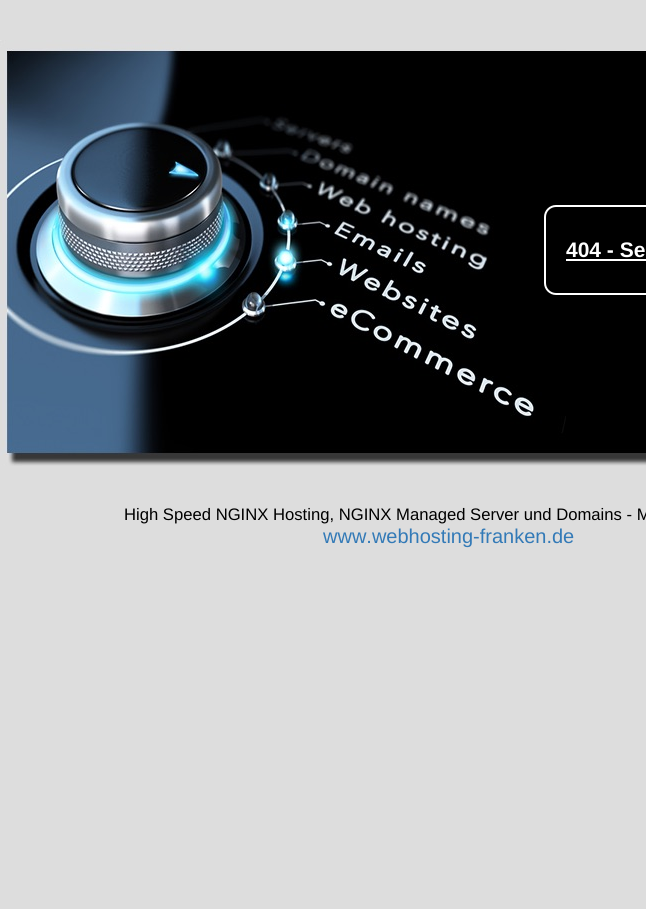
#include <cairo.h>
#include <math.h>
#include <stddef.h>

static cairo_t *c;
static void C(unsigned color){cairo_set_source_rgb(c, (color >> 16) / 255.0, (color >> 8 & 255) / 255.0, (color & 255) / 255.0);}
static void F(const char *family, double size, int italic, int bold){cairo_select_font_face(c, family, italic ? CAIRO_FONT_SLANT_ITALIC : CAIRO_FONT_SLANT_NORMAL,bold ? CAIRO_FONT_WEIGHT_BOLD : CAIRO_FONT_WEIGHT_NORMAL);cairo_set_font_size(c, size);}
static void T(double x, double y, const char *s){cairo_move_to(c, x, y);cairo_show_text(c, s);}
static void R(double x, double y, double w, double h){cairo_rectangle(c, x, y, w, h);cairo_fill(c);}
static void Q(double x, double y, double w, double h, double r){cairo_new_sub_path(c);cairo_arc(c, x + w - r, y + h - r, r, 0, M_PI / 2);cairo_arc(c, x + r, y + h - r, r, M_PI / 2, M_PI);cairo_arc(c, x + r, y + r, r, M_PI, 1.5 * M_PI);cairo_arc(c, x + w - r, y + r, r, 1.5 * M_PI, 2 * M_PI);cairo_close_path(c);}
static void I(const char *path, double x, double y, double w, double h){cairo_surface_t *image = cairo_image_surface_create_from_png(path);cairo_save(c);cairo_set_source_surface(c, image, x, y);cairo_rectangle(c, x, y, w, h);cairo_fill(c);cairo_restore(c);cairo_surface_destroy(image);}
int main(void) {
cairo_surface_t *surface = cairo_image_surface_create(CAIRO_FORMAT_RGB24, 646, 909);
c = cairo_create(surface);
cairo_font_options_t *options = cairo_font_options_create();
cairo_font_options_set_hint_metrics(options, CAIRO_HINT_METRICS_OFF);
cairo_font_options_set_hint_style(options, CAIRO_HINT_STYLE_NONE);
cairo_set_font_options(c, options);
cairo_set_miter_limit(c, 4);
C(0xdddddd);
cairo_paint(c);
I("1.png",0,40,646,426);
Q(545,206,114,88,11);
C(0xffffff);
cairo_stroke(c);
F("Liberation Sans",21,0,1);
T(566,257,"404 - Se");
R(566,259,80,2);
F("Liberation Sans",16.65,0,0);
C(0x000000);
T(124,520,"High Speed NGINX Hosting, NGINX Managed Server und Domains - M");
F("Liberation Sans",20,0,0);
C(0x337ab7);
T(323,543,"www.webhosting-franken.de");
cairo_surface_write_to_png(surface, "o.png");
cairo_font_options_destroy(options);
cairo_destroy(c);
cairo_surface_destroy(surface);
return 0;
}
